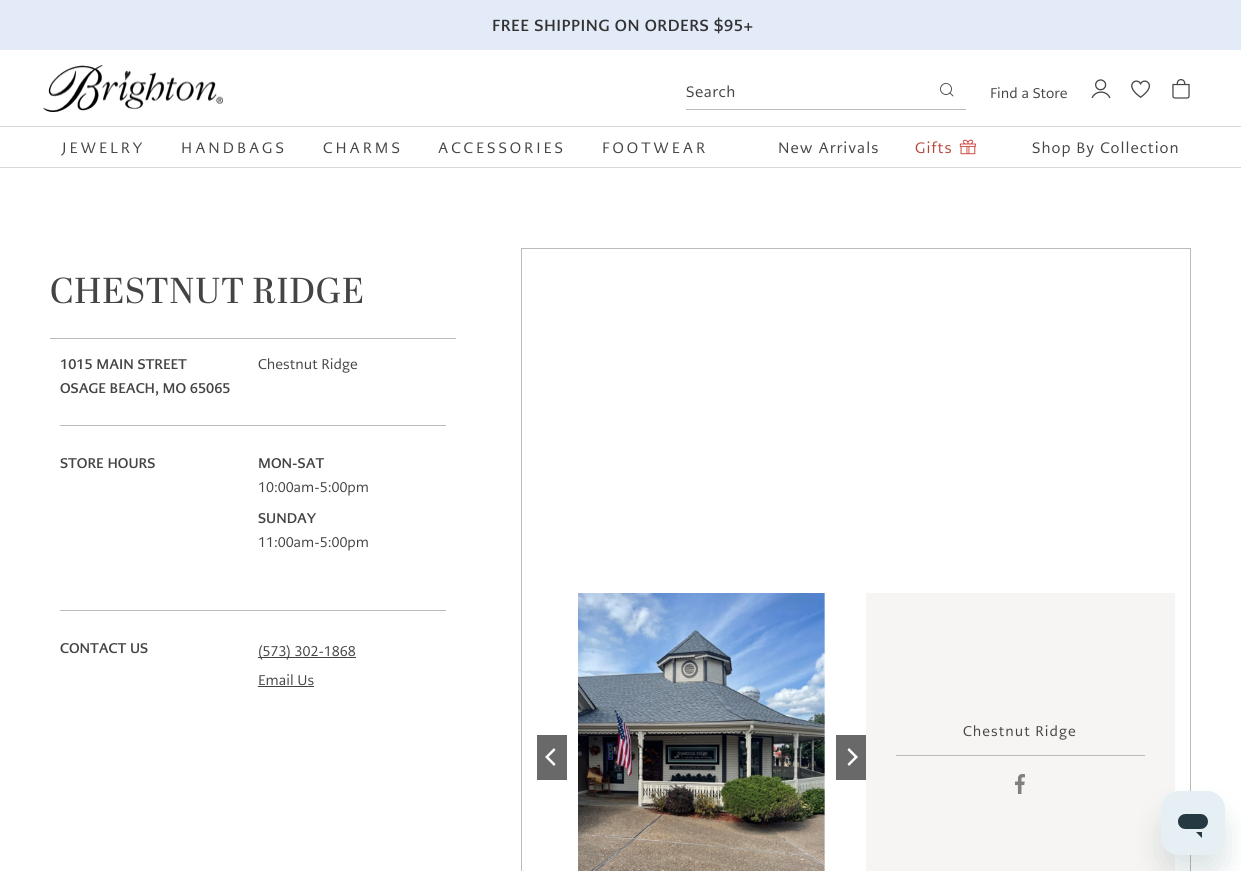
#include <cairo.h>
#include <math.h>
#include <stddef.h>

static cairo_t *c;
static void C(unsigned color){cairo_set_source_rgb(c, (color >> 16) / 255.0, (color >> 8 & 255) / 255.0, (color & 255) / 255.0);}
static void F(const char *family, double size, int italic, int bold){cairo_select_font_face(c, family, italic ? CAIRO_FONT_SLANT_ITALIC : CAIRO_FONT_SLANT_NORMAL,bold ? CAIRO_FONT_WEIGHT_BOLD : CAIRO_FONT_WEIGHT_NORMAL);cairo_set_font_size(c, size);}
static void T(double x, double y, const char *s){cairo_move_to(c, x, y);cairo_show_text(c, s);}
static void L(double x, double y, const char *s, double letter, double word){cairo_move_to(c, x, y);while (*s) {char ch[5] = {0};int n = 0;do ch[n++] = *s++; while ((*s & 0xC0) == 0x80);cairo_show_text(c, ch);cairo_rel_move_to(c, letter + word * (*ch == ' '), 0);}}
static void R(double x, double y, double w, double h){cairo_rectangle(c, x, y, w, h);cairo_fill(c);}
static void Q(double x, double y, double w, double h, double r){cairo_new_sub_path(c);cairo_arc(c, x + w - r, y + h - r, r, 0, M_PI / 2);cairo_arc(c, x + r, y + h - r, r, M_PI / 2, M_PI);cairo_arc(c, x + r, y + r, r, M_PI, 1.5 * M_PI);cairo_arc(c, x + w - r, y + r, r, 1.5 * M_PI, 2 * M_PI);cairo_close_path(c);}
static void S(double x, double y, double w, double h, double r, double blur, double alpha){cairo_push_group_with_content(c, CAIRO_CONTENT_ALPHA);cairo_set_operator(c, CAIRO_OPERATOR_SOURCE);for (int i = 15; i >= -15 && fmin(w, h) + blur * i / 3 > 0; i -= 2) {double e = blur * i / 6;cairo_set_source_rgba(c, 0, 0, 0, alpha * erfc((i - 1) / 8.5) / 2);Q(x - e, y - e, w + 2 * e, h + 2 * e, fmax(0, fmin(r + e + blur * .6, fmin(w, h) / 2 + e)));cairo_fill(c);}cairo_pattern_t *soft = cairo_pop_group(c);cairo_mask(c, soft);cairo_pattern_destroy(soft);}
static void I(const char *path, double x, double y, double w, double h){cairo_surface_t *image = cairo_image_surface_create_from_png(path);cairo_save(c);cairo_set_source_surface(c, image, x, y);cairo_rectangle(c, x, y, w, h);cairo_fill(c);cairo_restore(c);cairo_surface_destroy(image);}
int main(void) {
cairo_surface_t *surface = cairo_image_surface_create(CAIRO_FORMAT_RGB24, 1241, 871);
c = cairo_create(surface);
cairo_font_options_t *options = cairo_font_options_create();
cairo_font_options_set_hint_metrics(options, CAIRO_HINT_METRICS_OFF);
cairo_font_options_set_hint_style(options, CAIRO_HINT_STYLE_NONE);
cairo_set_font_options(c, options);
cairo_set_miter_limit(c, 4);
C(0xffffff);
cairo_paint(c);
C(0xe3ebf8);
R(0,0,1241,50);
F("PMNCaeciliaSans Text",16,0,1);
C(0x333333);
L(492,31,"FREE SHIPPING ON ORDERS $95+",.5,0);
C(0xd8d8d8);
R(0,167,1241,1);
I("1.png",43,65,180,47);
C(0xbdbab7);
R(686,109,280,1);
F("PMNCaeciliaSans Text",15,0,0);
C(0x444444);
L(686,97,"Search",.5,0);
cairo_new_path(c);
cairo_arc(c,946,89,5.5,0,2 * M_PI);
cairo_set_line_width(c,.9);
cairo_stroke(c);
cairo_new_path(c);
cairo_move_to(c,950,93);
cairo_line_to(c,953,96);
cairo_set_line_cap(c,CAIRO_LINE_CAP_ROUND);
cairo_stroke(c);
F("PMNCaeciliaSans Text",14,0,0);
T(990,98,"Find a Store");
I("2.png",1091,79,20,20);
I("3.png",1131,80,19,18);
I("4.png",1172,79,18,20);
C(0xd8d8d8);
R(0,126,1241,1);
F("PMNCaeciliaSans Text",15,0,0);
C(0x444444);
L(62,153,"JEWELRY",3,0);
L(181,153,"HANDBAGS",3,0);
L(323,153,"CHARMS",3,0);
L(438,153,"ACCESSORIES",3,0);
L(602,153,"FOOTWEAR",3,0);
L(778,153,"New Arrivals",1,0);
C(0xb9453a);
L(915,153,"Gifts",1,0);
I("5.png",959,139,18,16);
C(0x444444);
L(1032,153,"Shop By Collection",1,0);
C(0xbdbab7);
R(50,338,406,1);
F("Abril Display",36,0,0);
C(0x444444);
L(50,303,"CHESTNUT RIDGE",.6,0);
C(0xbdbab7);
R(60,425,386,1);
F("PMNCaeciliaSans Text",14,0,1);
C(0x444444);
T(60,369,"1015 MAIN STREET");
T(60,393,"OSAGE BEACH, MO 65065");
F("PMNCaeciliaSans Text",14,0,0);
T(258,369,"Chestnut Ridge");
C(0xbdbab7);
R(60,610,386,1);
F("PMNCaeciliaSans Text",14,0,1);
C(0x444444);
T(60,468,"STORE HOURS");
T(258,468,"MON-SAT");
F("PMNCaeciliaSans Text",14,0,0);
T(258,492,"10:00am-5:00pm");
F("PMNCaeciliaSans Text",14,0,1);
T(258,523,"SUNDAY");
F("PMNCaeciliaSans Text",14,0,0);
T(258,547,"11:00am-5:00pm");
F("PMNCaeciliaSans Text",14,0,1);
T(60,653,"CONTACT US");
R(258,657,98,1);
F("PMNCaeciliaSans Text",14,0,0);
T(258,656,"(573) 302-1868");
T(258,685,"Email Us");
R(258,686,56,1);
cairo_rectangle(c,521.5,248.5,669,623);
C(0xbdbab7);
cairo_set_line_width(c,1);
cairo_set_line_cap(c,CAIRO_LINE_CAP_BUTT);
cairo_stroke(c);
C(0xf7f5f3);
R(866,593,309,278);
I("6.png",537,593,329,278);
C(0x696969);
R(537,735,30,45);
C(0xffffff);
cairo_new_path(c);
cairo_move_to(c,545,757);
cairo_line_to(c,554,766);
cairo_line_to(c,555.5,764);
cairo_line_to(c,548.5,757);
cairo_line_to(c,555.5,750);
cairo_line_to(c,554,748);
cairo_close_path(c);
cairo_fill(c);
C(0x696969);
R(836,735,30,45);
C(0xffffff);
cairo_new_path(c);
cairo_move_to(c,858,757);
cairo_line_to(c,849,748);
cairo_line_to(c,847.5,750);
cairo_line_to(c,854.5,757);
cairo_line_to(c,847.5,764);
cairo_line_to(c,849,766);
cairo_close_path(c);
cairo_fill(c);
C(0x444444);
L(963,736,"Chestnut Ridge",1,0);
C(0xbdbab7);
R(896,755,249,1);
I("7.png",1015,774,10,20);
C(0x17494d);
S(1161,811,64,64,18,15,.15);
I("8.png",1161,791,64,64);
cairo_surface_write_to_png(surface, "o.png");
cairo_font_options_destroy(options);
cairo_destroy(c);
cairo_surface_destroy(surface);
return 0;
}
